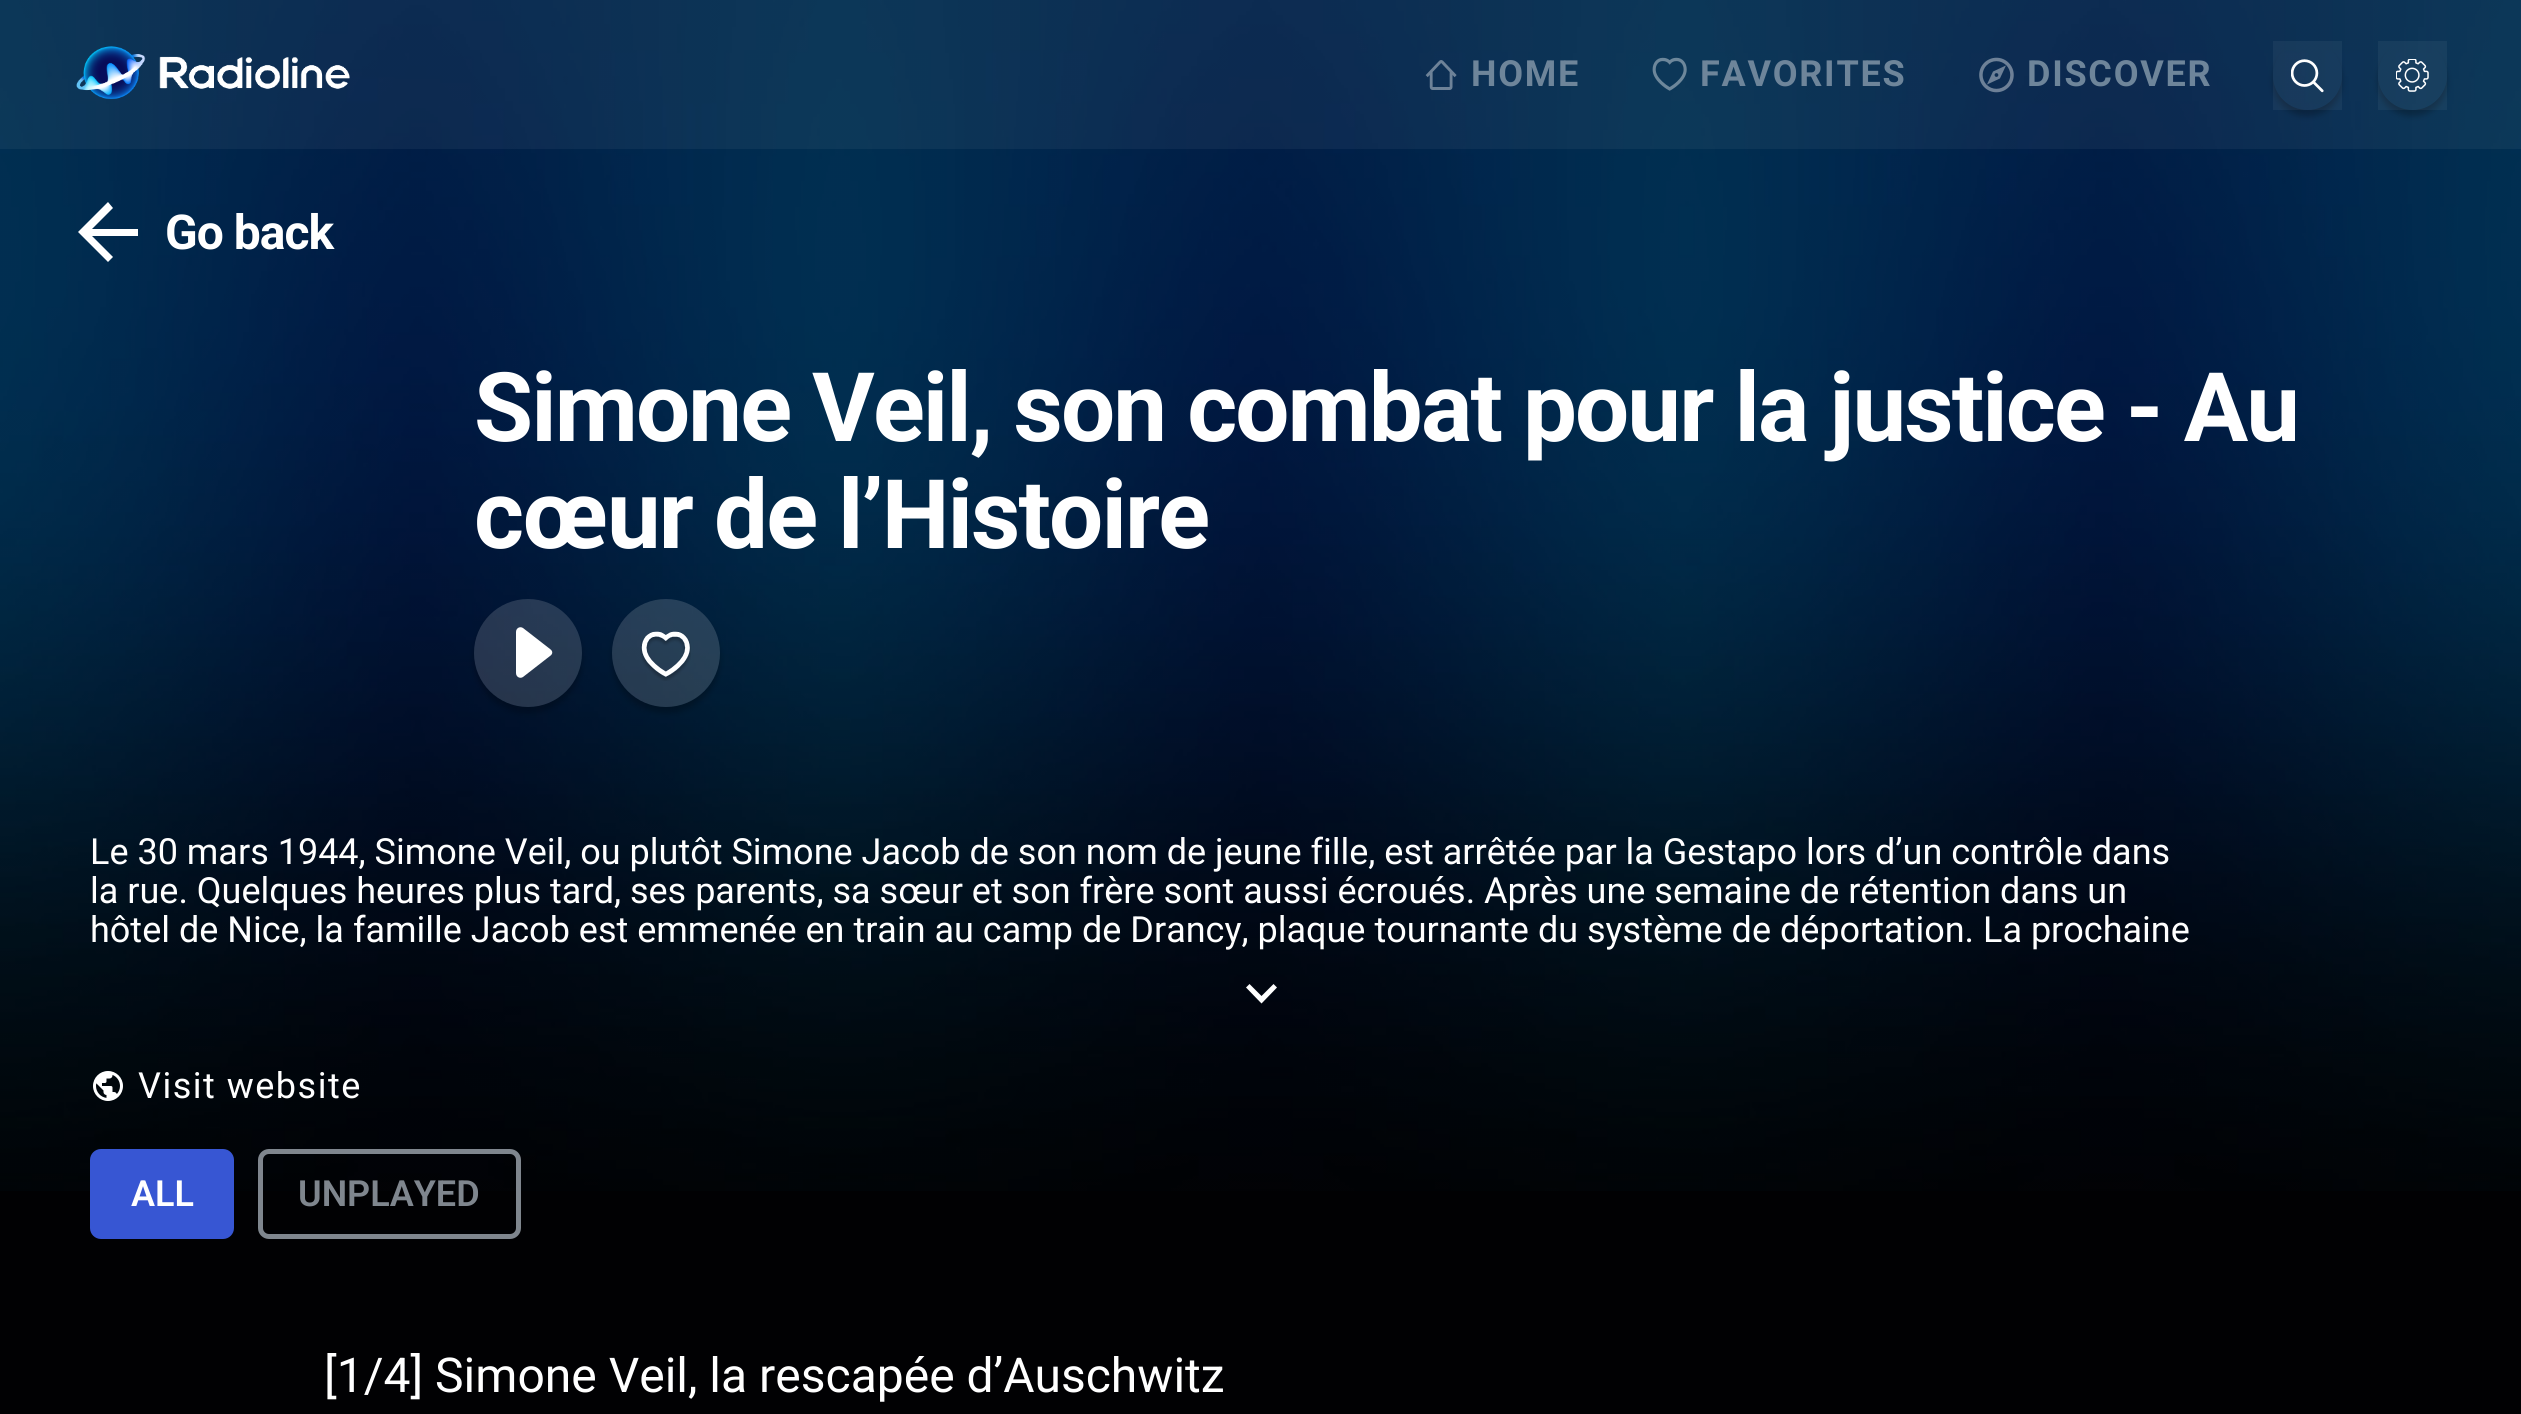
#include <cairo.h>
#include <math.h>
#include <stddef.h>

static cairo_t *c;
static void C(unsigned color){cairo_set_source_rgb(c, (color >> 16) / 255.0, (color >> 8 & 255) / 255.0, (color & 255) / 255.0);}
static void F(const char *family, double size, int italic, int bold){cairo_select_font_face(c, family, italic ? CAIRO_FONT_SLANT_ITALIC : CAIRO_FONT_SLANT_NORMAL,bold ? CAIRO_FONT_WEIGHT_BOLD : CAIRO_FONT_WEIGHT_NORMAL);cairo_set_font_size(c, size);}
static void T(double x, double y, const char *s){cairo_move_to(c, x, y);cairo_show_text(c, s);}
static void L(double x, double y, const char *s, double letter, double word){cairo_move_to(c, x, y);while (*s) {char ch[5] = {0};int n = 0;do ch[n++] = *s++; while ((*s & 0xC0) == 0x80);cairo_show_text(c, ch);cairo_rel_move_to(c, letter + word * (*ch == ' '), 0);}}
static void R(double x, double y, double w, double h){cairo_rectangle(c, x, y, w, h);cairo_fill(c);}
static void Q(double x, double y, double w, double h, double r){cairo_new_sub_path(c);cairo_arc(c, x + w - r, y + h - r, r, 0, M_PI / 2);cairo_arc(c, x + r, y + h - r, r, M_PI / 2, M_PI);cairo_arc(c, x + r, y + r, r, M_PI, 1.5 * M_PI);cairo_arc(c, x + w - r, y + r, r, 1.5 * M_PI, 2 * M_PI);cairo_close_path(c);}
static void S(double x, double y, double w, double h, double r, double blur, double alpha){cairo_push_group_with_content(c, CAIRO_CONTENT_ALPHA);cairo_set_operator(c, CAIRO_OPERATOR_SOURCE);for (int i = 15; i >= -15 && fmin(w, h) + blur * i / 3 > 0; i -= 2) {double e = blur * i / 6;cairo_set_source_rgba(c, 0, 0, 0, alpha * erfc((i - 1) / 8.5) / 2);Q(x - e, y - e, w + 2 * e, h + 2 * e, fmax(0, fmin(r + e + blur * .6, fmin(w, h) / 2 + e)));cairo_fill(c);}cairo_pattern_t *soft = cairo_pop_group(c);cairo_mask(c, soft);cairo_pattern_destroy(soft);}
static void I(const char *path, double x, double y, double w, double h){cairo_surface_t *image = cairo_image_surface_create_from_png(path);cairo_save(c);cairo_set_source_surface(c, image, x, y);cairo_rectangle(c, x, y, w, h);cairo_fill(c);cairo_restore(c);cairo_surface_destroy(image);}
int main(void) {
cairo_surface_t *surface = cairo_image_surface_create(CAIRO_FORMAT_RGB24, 2521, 1414);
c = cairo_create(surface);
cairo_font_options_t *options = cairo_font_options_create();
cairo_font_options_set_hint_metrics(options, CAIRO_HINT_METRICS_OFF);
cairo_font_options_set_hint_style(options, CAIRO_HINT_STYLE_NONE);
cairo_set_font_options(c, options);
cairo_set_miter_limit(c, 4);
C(0x010103);
cairo_paint(c);
I("1.png",0,0,2521,1191);
cairo_set_source_rgba(c,1,1,1,0.05);
R(0,0,2521,149);
I("2.png",76,46,274,54);
I("3.png",1425,60,32,30);
F("Roboto",36,0,1);
C(0x6e859a);
L(1471,86,"HOME",1.75,0);
I("4.png",1652,57,35,34);
L(1700,86,"FAVORITES",1.75,0);
I("5.png",1979,57,35,36);
L(2027,86,"DISCOVER",1.75,0);
cairo_save(c);
cairo_set_fill_rule(c,CAIRO_FILL_RULE_EVEN_ODD);
cairo_new_path(c);
cairo_move_to(c,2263,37);
cairo_line_to(c,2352,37);
cairo_line_to(c,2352,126);
cairo_line_to(c,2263,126);
cairo_close_path(c);
cairo_move_to(c,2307.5,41);
cairo_curve_to(c,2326.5,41,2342,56.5,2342,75.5);
cairo_curve_to(c,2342,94.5,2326.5,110,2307.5,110);
cairo_curve_to(c,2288.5,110,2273,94.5,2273,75.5);
cairo_curve_to(c,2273,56.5,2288.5,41,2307.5,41);
cairo_close_path(c);
cairo_clip(c);
C(0x000000);
S(2273,47,69,69,34.5,3,.25);
cairo_restore(c);
cairo_set_source_rgba(c,1,1,1,0.05);
R(2273,41,69,69);
I("6.png",2291,59,33,34);
cairo_save(c);
cairo_set_fill_rule(c,CAIRO_FILL_RULE_EVEN_ODD);
cairo_new_path(c);
cairo_move_to(c,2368,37);
cairo_line_to(c,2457,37);
cairo_line_to(c,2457,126);
cairo_line_to(c,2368,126);
cairo_close_path(c);
cairo_move_to(c,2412.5,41);
cairo_curve_to(c,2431.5,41,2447,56.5,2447,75.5);
cairo_curve_to(c,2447,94.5,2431.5,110,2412.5,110);
cairo_curve_to(c,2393.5,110,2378,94.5,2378,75.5);
cairo_curve_to(c,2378,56.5,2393.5,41,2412.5,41);
cairo_close_path(c);
cairo_clip(c);
C(0x000000);
S(2378,47,69,69,34.5,3,.25);
cairo_restore(c);
R(2378,41,69,69);
I("7.png",2396,59,33,33);
C(0xffffff);
cairo_new_path(c);
cairo_move_to(c,138,229);
cairo_line_to(c,92,229);
cairo_line_to(c,113,208);
cairo_line_to(c,108,202);
cairo_line_to(c,78,232);
cairo_line_to(c,108,262);
cairo_line_to(c,113,257);
cairo_line_to(c,92,236);
cairo_line_to(c,138,236);
cairo_close_path(c);
cairo_fill(c);
F("Roboto",48,0,1);
L(165,249,"Go back",-1,0);
F("Roboto",96,0,1);
L(474,441,"Simone Veil, son combat pour la justice - Au",-1.9,0);
L(474,548,"cœur de l’Histoire",-1.9,0);
cairo_save(c);
cairo_set_fill_rule(c,CAIRO_FILL_RULE_EVEN_ODD);
cairo_new_path(c);
cairo_move_to(c,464,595);
cairo_line_to(c,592,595);
cairo_line_to(c,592,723);
cairo_line_to(c,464,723);
cairo_close_path(c);
cairo_move_to(c,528,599);
cairo_curve_to(c,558,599,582,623,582,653);
cairo_curve_to(c,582,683,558,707,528,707);
cairo_curve_to(c,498,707,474,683,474,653);
cairo_curve_to(c,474,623,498,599,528,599);
cairo_close_path(c);
cairo_clip(c);
C(0x000000);
S(474,605,108,108,54,3,.25);
cairo_restore(c);
cairo_set_source_rgba(c,1,1,1,0.15);
cairo_arc(c,528,653,54,0,2 * M_PI);
cairo_fill(c);
C(0xffffff);
cairo_new_path(c);
cairo_move_to(c,550,649);
cairo_line_to(c,523,628);
cairo_curve_to(c,520,626,516,628,516,632);
cairo_line_to(c,516,673);
cairo_curve_to(c,516,677,520,679,523,677);
cairo_line_to(c,550,656);
cairo_curve_to(c,553,654,553,651,550,649);
cairo_close_path(c);
cairo_fill(c);
cairo_save(c);
cairo_set_fill_rule(c,CAIRO_FILL_RULE_EVEN_ODD);
cairo_new_path(c);
cairo_move_to(c,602,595);
cairo_line_to(c,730,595);
cairo_line_to(c,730,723);
cairo_line_to(c,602,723);
cairo_close_path(c);
cairo_move_to(c,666,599);
cairo_curve_to(c,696,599,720,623,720,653);
cairo_curve_to(c,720,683,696,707,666,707);
cairo_curve_to(c,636,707,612,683,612,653);
cairo_curve_to(c,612,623,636,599,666,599);
cairo_close_path(c);
cairo_clip(c);
C(0x000000);
S(612,605,108,108,54,3,.25);
cairo_restore(c);
cairo_set_source_rgba(c,1,1,1,0.15);
cairo_arc(c,666,653,54,0,2 * M_PI);
cairo_fill(c);
I("8.png",640,631,51,50);
F("Roboto",36,0,0);
C(0xffffff);
T(90,864,"Le 30 mars 1944, Simone Veil, ou plutôt Simone Jacob de son nom de jeune fille, est arrêtée par la Gestapo lors d’un contrôle dans");
T(90,903,"la rue. Quelques heures plus tard, ses parents, sa sœur et son frère sont aussi écroués. Après une semaine de rétention dans un");
T(90,942,"hôtel de Nice, la famille Jacob est emmenée en train au camp de Drancy, plaque tournante du système de déportation. La prochaine");
cairo_new_path(c);
cairo_move_to(c,1249.5,984);
cairo_line_to(c,1261.5,996);
cairo_line_to(c,1273.5,984);
cairo_line_to(c,1277,987.5);
cairo_line_to(c,1261.5,1003.5);
cairo_line_to(c,1246,987.5);
cairo_close_path(c);
cairo_fill(c);
I("9.png",93,1071,30,30);
L(138,1098,"Visit website",1.5,0);
C(0x3756d3);
Q(92.5,1151.5,139,85,8.5);
cairo_fill_preserve(c);
cairo_set_line_width(c,5);
cairo_stroke(c);
F("Roboto SemiBold",36,0,0);
C(0xffffff);
T(131,1206,"ALL");
Q(260.5,1151.5,258,85,8.5);
C(0x7f868e);
cairo_stroke(c);
T(298,1206,"UNPLAYED");
F("Roboto",48,0,0);
C(0xffffff);
T(324,1392,"[1/4] Simone Veil, la rescapée d’Auschwitz");
cairo_surface_write_to_png(surface, "o.png");
cairo_font_options_destroy(options);
cairo_destroy(c);
cairo_surface_destroy(surface);
return 0;
}
